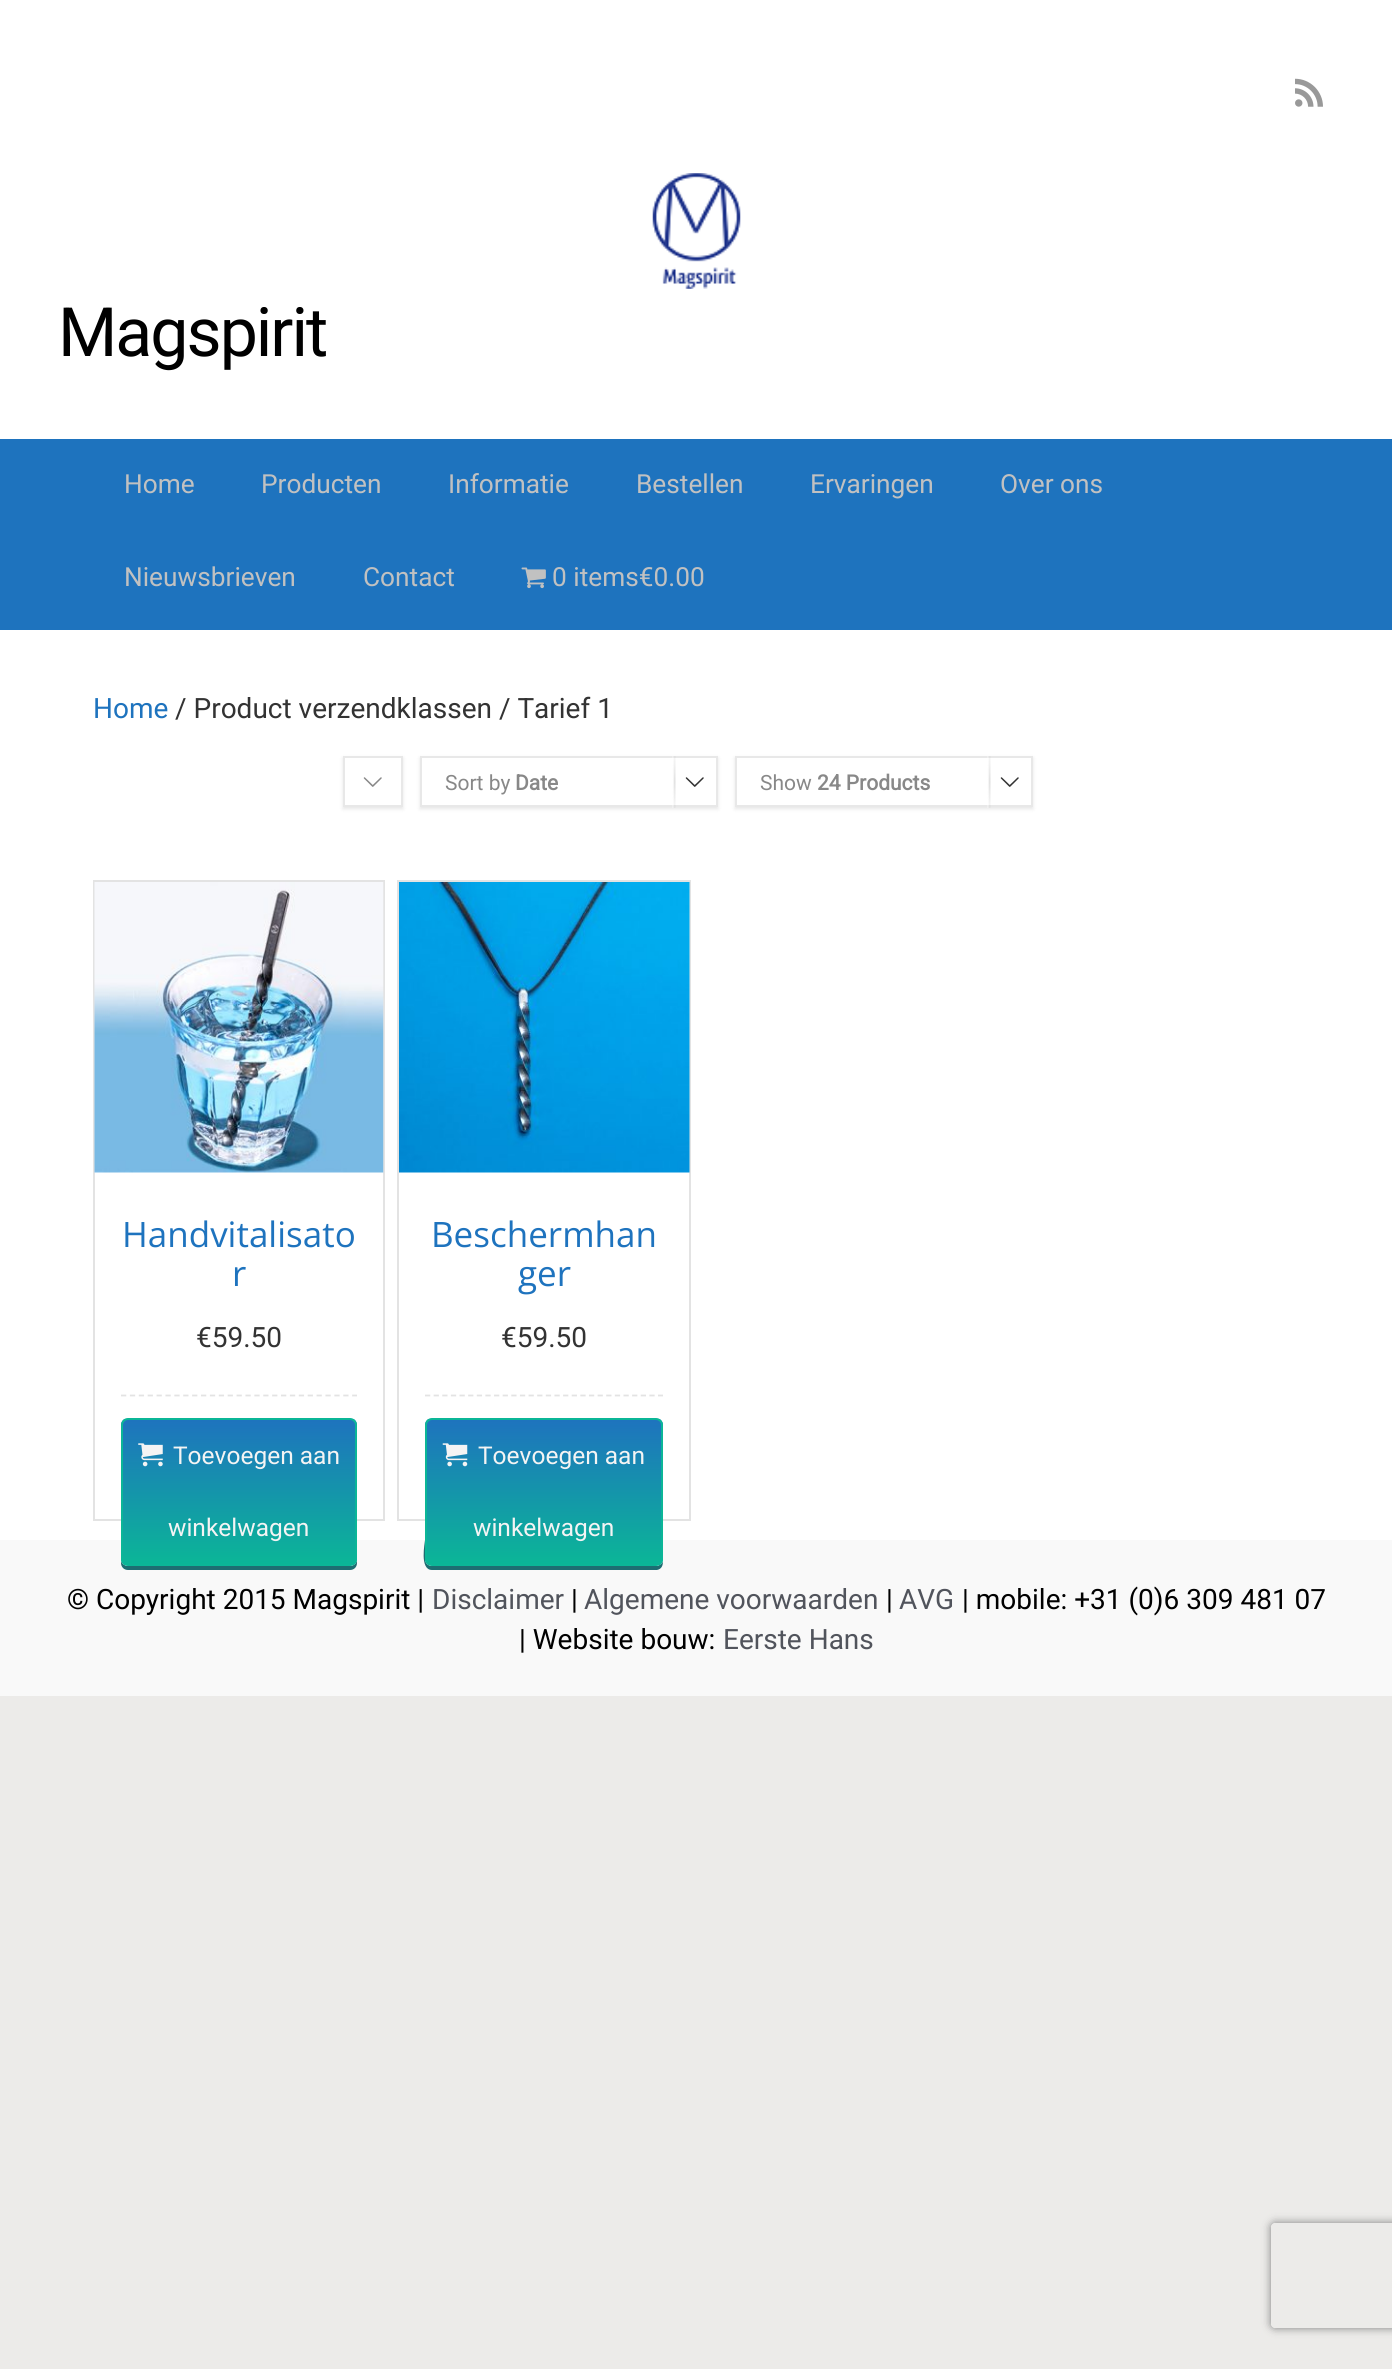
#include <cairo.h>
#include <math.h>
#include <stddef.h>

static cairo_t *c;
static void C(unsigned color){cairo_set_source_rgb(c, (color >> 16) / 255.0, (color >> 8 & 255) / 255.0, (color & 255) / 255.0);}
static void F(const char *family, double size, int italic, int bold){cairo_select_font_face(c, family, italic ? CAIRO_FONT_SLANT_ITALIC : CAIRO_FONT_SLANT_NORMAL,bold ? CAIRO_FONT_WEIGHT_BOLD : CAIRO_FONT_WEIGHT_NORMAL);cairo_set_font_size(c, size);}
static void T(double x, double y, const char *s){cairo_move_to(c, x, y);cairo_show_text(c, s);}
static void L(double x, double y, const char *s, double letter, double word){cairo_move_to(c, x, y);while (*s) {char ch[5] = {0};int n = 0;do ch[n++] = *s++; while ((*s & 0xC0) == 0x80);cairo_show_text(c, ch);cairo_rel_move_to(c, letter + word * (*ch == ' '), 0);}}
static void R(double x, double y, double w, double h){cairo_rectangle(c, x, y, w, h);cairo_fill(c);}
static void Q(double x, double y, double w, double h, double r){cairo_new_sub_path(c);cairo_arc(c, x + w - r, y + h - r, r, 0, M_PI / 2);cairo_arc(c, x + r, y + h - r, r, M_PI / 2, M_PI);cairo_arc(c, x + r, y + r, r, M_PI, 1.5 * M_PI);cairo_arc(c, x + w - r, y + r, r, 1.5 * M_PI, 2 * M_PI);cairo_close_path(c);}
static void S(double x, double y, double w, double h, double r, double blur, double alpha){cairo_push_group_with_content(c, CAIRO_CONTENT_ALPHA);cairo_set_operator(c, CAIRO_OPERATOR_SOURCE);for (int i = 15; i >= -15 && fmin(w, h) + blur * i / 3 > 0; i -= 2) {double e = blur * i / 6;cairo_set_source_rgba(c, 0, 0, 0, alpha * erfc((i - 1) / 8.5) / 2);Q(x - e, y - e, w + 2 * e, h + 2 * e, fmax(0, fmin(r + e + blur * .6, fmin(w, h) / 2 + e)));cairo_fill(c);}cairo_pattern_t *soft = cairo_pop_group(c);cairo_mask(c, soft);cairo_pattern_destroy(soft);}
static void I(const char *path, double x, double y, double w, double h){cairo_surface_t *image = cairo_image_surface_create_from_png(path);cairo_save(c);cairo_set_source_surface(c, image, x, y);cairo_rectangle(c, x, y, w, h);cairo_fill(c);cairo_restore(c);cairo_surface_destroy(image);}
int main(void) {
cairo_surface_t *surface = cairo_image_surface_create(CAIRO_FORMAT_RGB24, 1392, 2369);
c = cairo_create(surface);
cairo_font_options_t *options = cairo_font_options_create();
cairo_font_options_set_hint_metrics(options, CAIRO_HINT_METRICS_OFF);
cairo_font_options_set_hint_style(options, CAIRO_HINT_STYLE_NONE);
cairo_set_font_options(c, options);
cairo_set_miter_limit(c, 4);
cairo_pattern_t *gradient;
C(0xecebe9);
cairo_paint(c);
C(0xf9f9f9);
R(0,1540,1392,156);
C(0xffffff);
R(0,0,1392,439);
I("1.png",1295,78,28,29);
I("2.png",652,173,89,116);
F("Roboto",68,0,0);
C(0x000000);
L(58,356,"Magspirit",-2,0);
C(0x1e73be);
R(0,439,1392,191);
F("Roboto",26.25,0,0);
C(0xc1c1c1);
T(124,493,"Home");
T(261,493,"Producten");
T(448,493,"Informatie");
T(636,493,"Bestellen");
T(810,493,"Ervaringen");
T(1000,493,"Over ons");
T(124,586,"Nieuwsbrieven");
T(363,586,"Contact");
I("3.png",521,567,25,22);
T(552,586,"0 items€0.00");
C(0xffffff);
R(0,630,1392,910);
F("Roboto",28,0,0);
C(0x1e73be);
T(93,718,"Home");
C(0x333333);
T(175,718,"/ Product verzendklassen / Tarief 1");
cairo_save(c);
cairo_set_fill_rule(c,CAIRO_FILL_RULE_EVEN_ODD);
cairo_new_path(c);
cairo_move_to(c,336,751);
cairo_line_to(c,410,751);
cairo_line_to(c,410,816);
cairo_line_to(c,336,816);
cairo_close_path(c);
cairo_move_to(c,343,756);
cairo_line_to(c,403,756);
cairo_line_to(c,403,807);
cairo_line_to(c,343,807);
cairo_close_path(c);
cairo_clip(c);
C(0x000000);
S(343,758,60,51,0,2,.1);
cairo_restore(c);
cairo_rectangle(c,344,757,58,49);
C(0xe8e8e8);
cairo_stroke(c);
I("4.png",363,777,19,10);
cairo_save(c);
cairo_set_fill_rule(c,CAIRO_FILL_RULE_EVEN_ODD);
cairo_new_path(c);
cairo_move_to(c,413,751);
cairo_line_to(c,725,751);
cairo_line_to(c,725,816);
cairo_line_to(c,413,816);
cairo_close_path(c);
cairo_move_to(c,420,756);
cairo_line_to(c,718,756);
cairo_line_to(c,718,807);
cairo_line_to(c,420,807);
cairo_close_path(c);
cairo_clip(c);
C(0x000000);
S(420,758,298,51,0,2,.1);
cairo_restore(c);
cairo_rectangle(c,421,757,296,49);
cairo_stroke(c);
F("Roboto",21,0,0);
C(0x888888);
T(445,790,"Sort by");
F("Roboto",21,0,1);
T(515,790,"Date");
I("5.png",672,756,4,52);
I("6.png",685,777,19,10);
cairo_save(c);
cairo_set_fill_rule(c,CAIRO_FILL_RULE_EVEN_ODD);
cairo_new_path(c);
cairo_move_to(c,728,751);
cairo_line_to(c,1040,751);
cairo_line_to(c,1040,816);
cairo_line_to(c,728,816);
cairo_close_path(c);
cairo_move_to(c,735,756);
cairo_line_to(c,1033,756);
cairo_line_to(c,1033,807);
cairo_line_to(c,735,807);
cairo_close_path(c);
cairo_clip(c);
C(0x000000);
S(735,758,298,51,0,2,.1);
cairo_restore(c);
cairo_rectangle(c,736,757,296,49);
C(0xe8e8e8);
cairo_stroke(c);
F("Roboto",21,0,0);
C(0x888888);
T(760,790,"Show");
F("Roboto",21,0,1);
T(817,790,"24 Products");
I("5.png",987,756,4,52);
I("6.png",1000,777,19,10);
cairo_rectangle(c,94,881,290,639);
C(0xe3e3e3);
cairo_stroke(c);
I("7.png",94,882,290,291);
cairo_new_path(c);
cairo_move_to(c,121,1395.5);
cairo_line_to(c,357,1395.5);
cairo_set_line_width(c,1.8);
cairo_set_dash(c,(double[]){5.25,3.64},2,0);
cairo_stroke(c);
F("Open Sans",35,0,0);
C(0x1e73be);
T(122,1247,"Handvitalisato");
T(232,1286,"r");
F("Roboto",28,0,0);
C(0x333333);
T(196,1347,"€59.50");
C(0x1d6e72);
cairo_new_path(c);
cairo_move_to(c,121,1561);
cairo_line_to(c,121,1563);
cairo_curve_to(c,121,1567,124,1570,128,1570);
cairo_line_to(c,350,1570);
cairo_curve_to(c,354,1570,357,1567,357,1563);
cairo_line_to(c,357,1559);
cairo_curve_to(c,357,1563,354,1566,350,1566);
cairo_line_to(c,128,1566);
cairo_curve_to(c,125,1566,122,1564,121,1561);
cairo_close_path(c);
cairo_fill(c);
cairo_save(c);
Q(121,1418,236,148,7);
cairo_clip(c);
gradient = cairo_pattern_create_linear(239,1565,239,1419);
cairo_pattern_add_color_stop_rgba(gradient,0,0.043,0.714,0.592,1);
cairo_pattern_add_color_stop_rgba(gradient,1,0.118,0.451,0.745,1);
cairo_set_source(c,gradient);
cairo_pattern_destroy(gradient);
R(121,1419,236,146);
cairo_restore(c);
Q(122,1419,234,146,6);
C(0x0bb697);
cairo_set_line_width(c,2);
cairo_set_dash(c,NULL,0,0);
cairo_stroke(c);
I("8.png",138,1443,25,24);
F("Roboto",24.5,0,0);
C(0xf4f4f4);
T(173,1464,"Toevoegen aan");
T(168,1536,"winkelwagen");
cairo_rectangle(c,398,881,292,639);
C(0xe3e3e3);
cairo_stroke(c);
I("9.png",399,882,291,291);
cairo_new_path(c);
cairo_move_to(c,425,1395.5);
cairo_line_to(c,663,1395.5);
cairo_set_line_width(c,1.8);
cairo_set_dash(c,(double[]){5.25,3.38},2,0);
cairo_stroke(c);
F("Open Sans",35,0,0);
C(0x1e73be);
T(431,1247,"Beschermhan");
T(518,1286,"ger");
F("Roboto",28,0,0);
C(0x333333);
T(501,1347,"€59.50");
C(0x1d6e72);
cairo_new_path(c);
cairo_move_to(c,425,1426);
cairo_line_to(c,425,1540);
cairo_curve_to(c,425,1542,419,1570,432,1570);
cairo_line_to(c,657,1570);
cairo_curve_to(c,662,1569,663,1565,663,1561);
cairo_curve_to(c,662,1564,659,1566,656,1566);
cairo_line_to(c,432,1566);
cairo_curve_to(c,428,1566,425,1563,425,1559);
cairo_close_path(c);
cairo_fill(c);
cairo_save(c);
Q(425,1418,238,148,7);
cairo_clip(c);
gradient = cairo_pattern_create_linear(544,1565,544,1419);
cairo_pattern_add_color_stop_rgba(gradient,0,0.043,0.714,0.592,1);
cairo_pattern_add_color_stop_rgba(gradient,1,0.118,0.451,0.745,1);
cairo_set_source(c,gradient);
cairo_pattern_destroy(gradient);
R(425,1419,238,146);
cairo_restore(c);
Q(426,1419,236,146,6);
C(0x0bb697);
cairo_set_line_width(c,2);
cairo_set_dash(c,NULL,0,0);
cairo_stroke(c);
I("10.png",442,1443,26,24);
F("Roboto",24.5,0,0);
C(0xf4f4f4);
T(478,1464,"Toevoegen aan");
T(473,1536,"winkelwagen");
F("Roboto",28,0,0);
C(0x000000);
T(67,1609,"© Copyright 2015 Magspirit |");
C(0x51545c);
T(432,1609,"Disclaimer");
C(0x000000);
T(571,1609,"|");
C(0x51545c);
T(584,1609,"Algemene voorwaarden");
C(0x000000);
T(886,1609,"|");
C(0x51545c);
T(899,1609,"AVG");
C(0x000000);
T(962,1609,"| mobile: +31 (0)6 309 481 07");
T(519,1649,"| Website bouw:");
C(0x51545c);
T(723,1649,"Eerste Hans");
cairo_save(c);
cairo_set_fill_rule(c,CAIRO_FILL_RULE_EVEN_ODD);
cairo_new_path(c);
cairo_move_to(c,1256,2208);
cairo_line_to(c,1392,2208);
cairo_line_to(c,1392,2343);
cairo_line_to(c,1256,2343);
cairo_close_path(c);
cairo_move_to(c,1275,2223);
cairo_line_to(c,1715,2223);
cairo_curve_to(c,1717,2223,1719,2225,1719,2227);
cairo_line_to(c,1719,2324);
cairo_curve_to(c,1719,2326,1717,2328,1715,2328);
cairo_line_to(c,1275,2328);
cairo_curve_to(c,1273,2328,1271,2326,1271,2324);
cairo_line_to(c,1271,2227);
cairo_curve_to(c,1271,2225,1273,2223,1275,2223);
cairo_close_path(c);
cairo_clip(c);
C(0x808080);
S(1271,2223,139,105,4,4.5,1);
cairo_restore(c);
cairo_surface_write_to_png(surface, "o.png");
cairo_font_options_destroy(options);
cairo_destroy(c);
cairo_surface_destroy(surface);
return 0;
}
